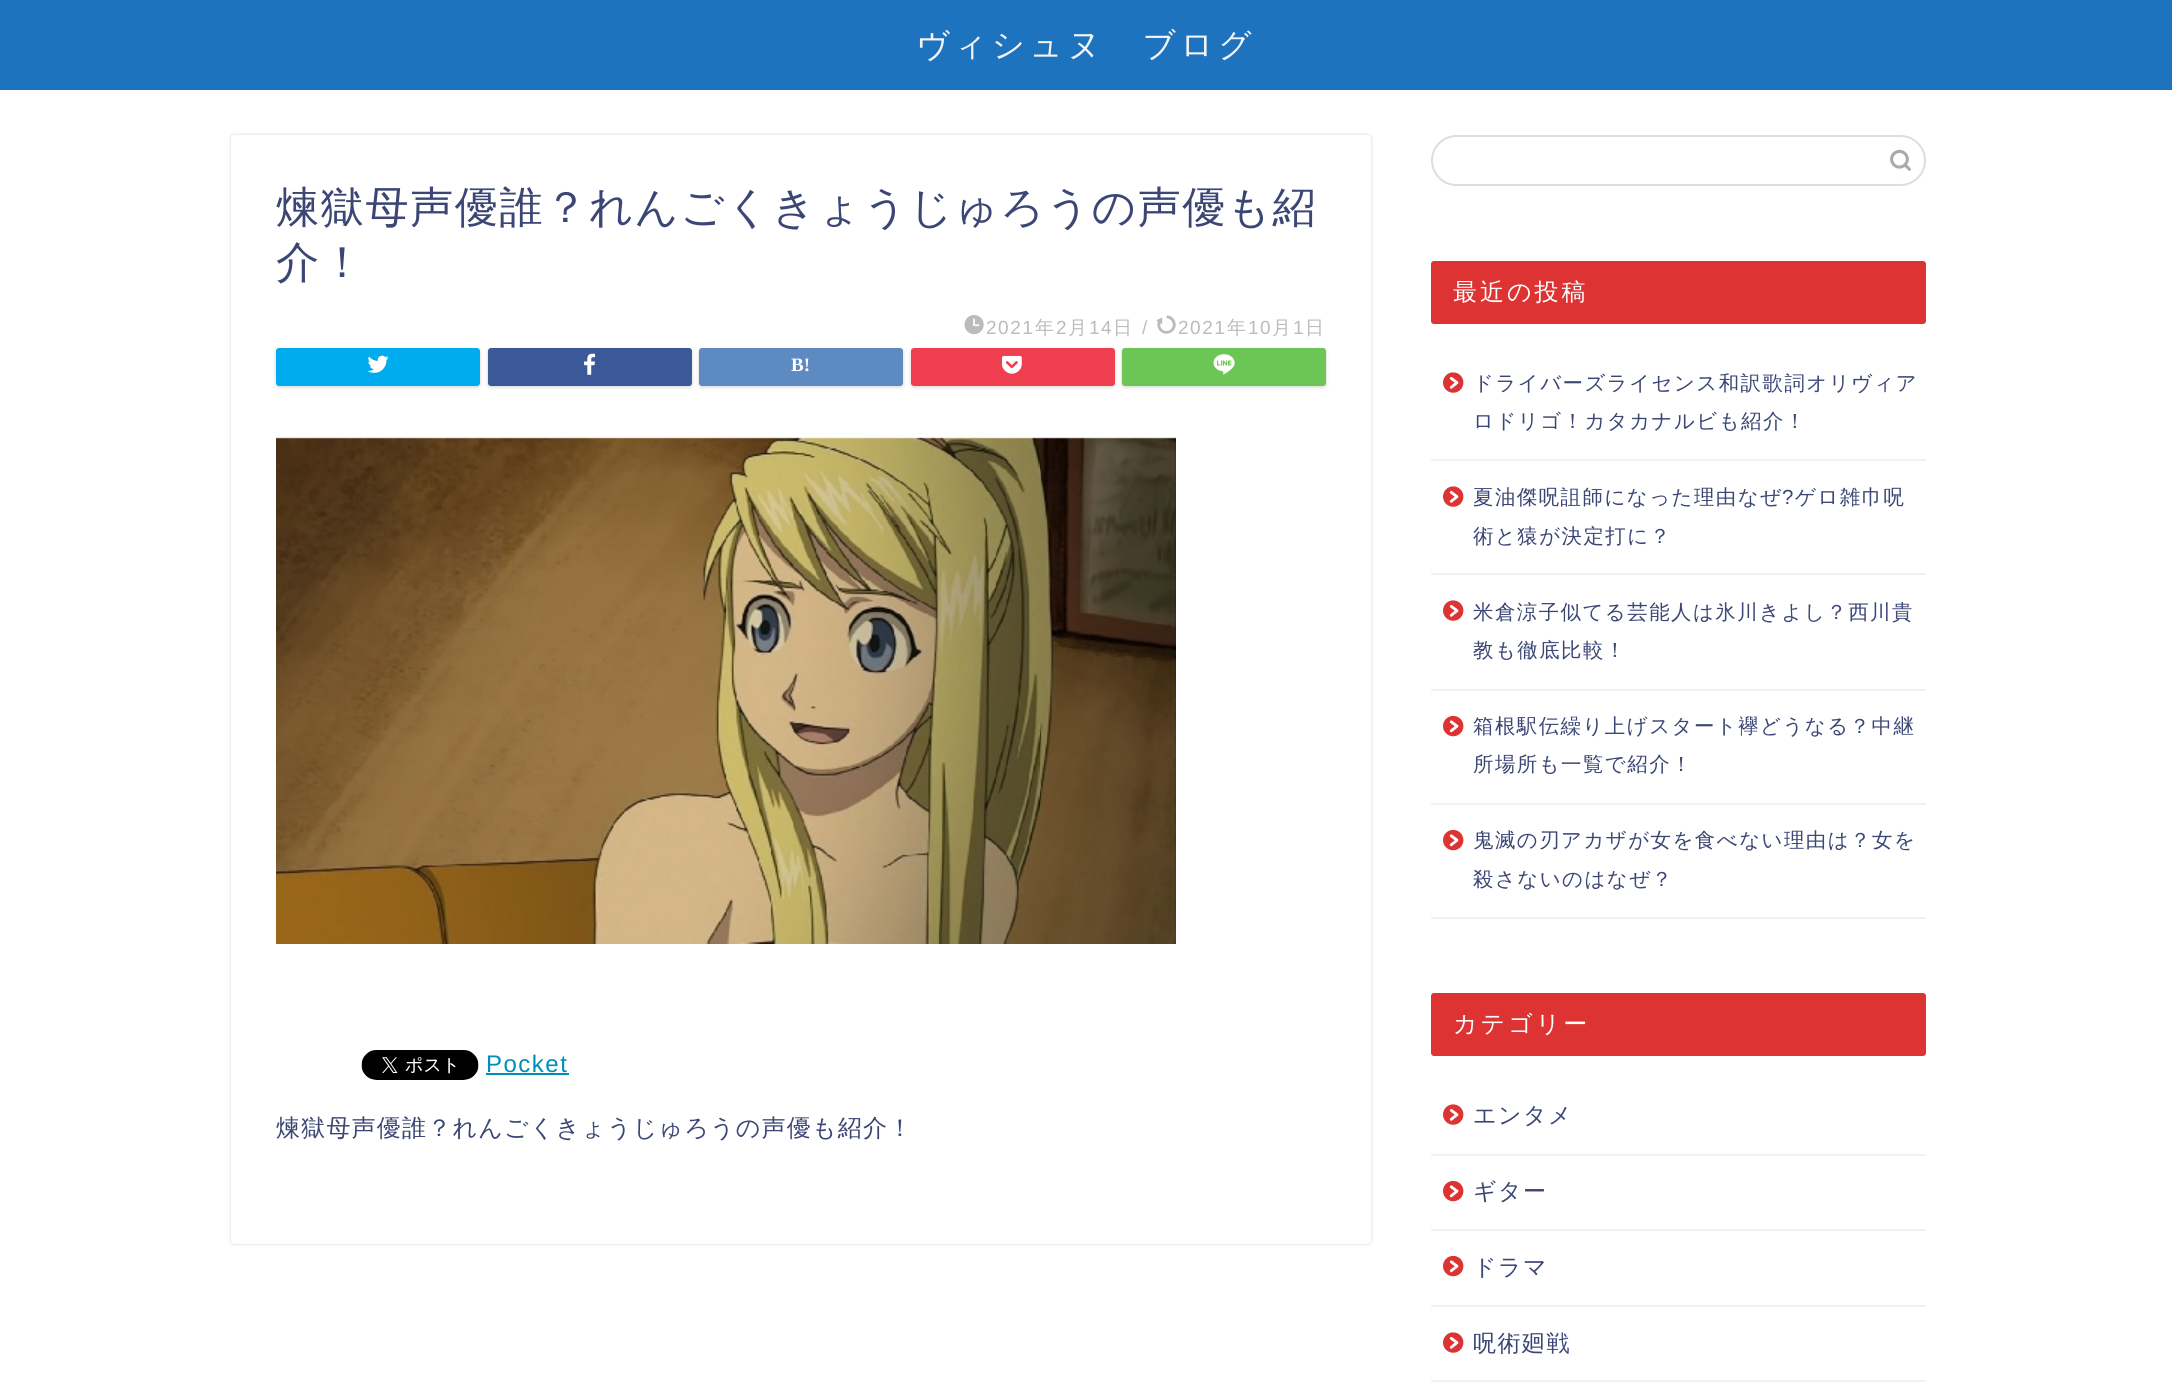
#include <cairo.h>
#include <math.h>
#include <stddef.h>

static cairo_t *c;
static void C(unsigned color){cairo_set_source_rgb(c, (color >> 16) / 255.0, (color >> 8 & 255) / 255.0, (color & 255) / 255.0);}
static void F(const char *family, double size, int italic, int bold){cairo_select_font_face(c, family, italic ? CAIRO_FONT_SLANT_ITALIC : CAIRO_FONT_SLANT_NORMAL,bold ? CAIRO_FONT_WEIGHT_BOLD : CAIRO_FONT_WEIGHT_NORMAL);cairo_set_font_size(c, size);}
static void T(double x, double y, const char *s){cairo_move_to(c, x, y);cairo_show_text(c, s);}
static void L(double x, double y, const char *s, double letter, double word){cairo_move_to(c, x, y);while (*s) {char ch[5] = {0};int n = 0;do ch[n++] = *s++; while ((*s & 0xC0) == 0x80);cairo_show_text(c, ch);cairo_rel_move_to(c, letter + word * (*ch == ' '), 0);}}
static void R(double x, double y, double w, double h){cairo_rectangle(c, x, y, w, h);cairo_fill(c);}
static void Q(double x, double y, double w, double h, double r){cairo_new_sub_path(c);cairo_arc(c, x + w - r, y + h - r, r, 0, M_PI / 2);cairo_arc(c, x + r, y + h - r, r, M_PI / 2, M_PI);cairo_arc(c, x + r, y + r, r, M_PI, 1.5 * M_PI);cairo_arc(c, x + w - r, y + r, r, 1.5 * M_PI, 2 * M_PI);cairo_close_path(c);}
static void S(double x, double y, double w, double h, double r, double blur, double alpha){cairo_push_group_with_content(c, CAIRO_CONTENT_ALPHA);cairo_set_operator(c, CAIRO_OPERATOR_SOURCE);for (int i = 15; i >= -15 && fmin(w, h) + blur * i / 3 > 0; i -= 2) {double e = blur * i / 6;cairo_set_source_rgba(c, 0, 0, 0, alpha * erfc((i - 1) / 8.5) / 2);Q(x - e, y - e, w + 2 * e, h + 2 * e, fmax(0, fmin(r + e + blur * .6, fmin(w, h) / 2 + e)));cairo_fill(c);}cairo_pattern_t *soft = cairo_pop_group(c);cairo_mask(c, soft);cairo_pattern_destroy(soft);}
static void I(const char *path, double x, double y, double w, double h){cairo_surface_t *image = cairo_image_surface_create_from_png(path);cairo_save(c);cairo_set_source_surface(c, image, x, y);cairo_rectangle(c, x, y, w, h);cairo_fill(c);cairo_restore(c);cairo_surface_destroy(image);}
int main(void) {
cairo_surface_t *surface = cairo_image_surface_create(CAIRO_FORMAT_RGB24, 2172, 1390);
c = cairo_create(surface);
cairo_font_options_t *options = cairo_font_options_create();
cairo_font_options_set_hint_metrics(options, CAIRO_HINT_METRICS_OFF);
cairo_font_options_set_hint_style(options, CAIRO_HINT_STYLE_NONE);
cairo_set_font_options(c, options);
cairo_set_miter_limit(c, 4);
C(0xffffff);
cairo_paint(c);
C(0x1e73be);
R(0,0,2172,90);
F("WenQuanYi Zen Hei Medium",32.6,0,0);
C(0xf4f4f4);
L(916,56,"ヴィシュヌ　ブログ",4.5,0);
C(0x000000);
S(231,135,1140,1109,3,1.5,.18);
C(0xffffff);
Q(231,135,1140,1109,3);
cairo_fill(c);
F("WenQuanYi Zen Hei Medium",43.2,0,0);
C(0x3b4675);
L(276,222,"煉獄母声優誰？れんごくきょうじゅろうの声優も紹",1.5,0);
L(276,277,"介！",1.5,0);
I("1.png",964,315,20,20);
F("Liberation Sans",19,0,0);
C(0xbbbbbb);
L(986,334,"2021",1.5,0);
F("WenQuanYi Zen Hei Medium",19,0,0);
L(1035,334,"年",1.5,0);
F("Liberation Sans",19,0,0);
L(1056,334,"2",1.5,0);
F("WenQuanYi Zen Hei Medium",19,0,0);
L(1068,334,"月",1.5,0);
F("Liberation Sans",19,0,0);
L(1089,334,"14",1.5,0);
F("WenQuanYi Zen Hei Medium",19,0,0);
L(1113,334,"日",1.5,0);
F("Liberation Sans",19,0,0);
L(1142,334,"/",1.5,0);
I("2.png",1156,315,20,19);
L(1178,334,"2021",1.5,0);
F("WenQuanYi Zen Hei Medium",19,0,0);
L(1227,334,"年",1.5,0);
F("Liberation Sans",19,0,0);
L(1248,334,"10",1.5,0);
F("WenQuanYi Zen Hei Medium",19,0,0);
L(1272,334,"月",1.5,0);
F("Liberation Sans",19,0,0);
L(1293,334,"1",1.5,0);
F("WenQuanYi Zen Hei Medium",19,0,0);
L(1305,334,"日",1.5,0);
C(0x000000);
S(276,350,204,37,3,2,.18);
C(0x00acee);
Q(277.5,349.5,201,35,1.5);
cairo_fill_preserve(c);
cairo_set_line_width(c,3);
cairo_stroke(c);
I("3.png",367,355,22,18);
C(0x000000);
S(488,350,204,37,3,2,.18);
C(0x3b5998);
Q(489.5,349.5,201,35,1.5);
cairo_fill_preserve(c);
cairo_stroke(c);
I("4.png",584,353,12,22);
C(0x000000);
S(699,350,204,37,3,2,.18);
C(0x5d8ac1);
Q(700.5,349.5,201,35,1.5);
cairo_fill_preserve(c);
cairo_stroke(c);
F("Liberation Serif",19,0,1);
C(0xffffff);
T(791,371,"B!");
C(0x000000);
S(911,350,204,37,3,2,.18);
C(0xf03e51);
Q(912.5,349.5,201,35,1.5);
cairo_fill_preserve(c);
cairo_stroke(c);
I("5.png",1002,355,20,19);
C(0x000000);
S(1122,350,204,37,3,2,.18);
C(0x6cc655);
Q(1123.5,349.5,201,35,1.5);
cairo_fill_preserve(c);
cairo_stroke(c);
I("6.png",1213,354,22,21);
I("7.png",276,437,900,507);
I("8.png",361,1050,118,30);
F("Liberation Sans",24,0,0);
C(0x008db7);
L(486,1072,"Pocket",1.5,0);
R(486,1073,83,2);
F("WenQuanYi Zen Hei Medium",24,0,0);
C(0x3b4675);
L(276,1136,"煉獄母声優誰？れんごくきょうじゅろうの声優も紹介！",1.2,0);
Q(1432,136,493,49,24.5);
C(0xdddddd);
cairo_set_line_width(c,2);
cairo_stroke(c);
I("9.png",1890,149,21,22);
C(0xdd3333);
Q(1431,261,495,63,3);
cairo_fill(c);
C(0xffffff);
L(1453,300,"最近の投稿",3,0);
C(0xf2f2f2);
R(1431,459,495,2);
I("10.png",1443,372,21,21);
F("WenQuanYi Zen Hei Medium",20.4,0,0);
C(0x3b4675);
L(1473,390,"ドライバーズライセンス和訳歌詞オリヴィア",1.5,0);
L(1473,428,"ロドリゴ！カタカナルビも紹介！",1.5,0);
C(0xf2f2f2);
R(1431,573,495,2);
I("10.png",1443,486,21,21);
C(0x3b4675);
L(1473,504,"夏油傑呪詛師になった理由なぜ",1.5,0);
F("Liberation Sans",20.4,0,0);
L(1782,504,"?",1.5,0);
F("WenQuanYi Zen Hei Medium",20.4,0,0);
L(1795,504,"ゲロ雑巾呪",1.5,0);
L(1473,543,"術と猿が決定打に？",1.5,0);
C(0xf2f2f2);
R(1431,689,495,2);
I("10.png",1443,600,21,21);
C(0x3b4675);
L(1473,619,"米倉涼子似てる芸能人は氷川きよし？西川貴",1.5,0);
L(1473,657,"教も徹底比較！",1.5,0);
C(0xf2f2f2);
R(1431,803,495,2);
I("11.png",1443,715,21,22);
C(0x3b4675);
L(1473,733,"箱根駅伝繰り上げスタート襷どうなる？中継",1.5,0);
L(1473,771,"所場所も一覧で紹介！",1.5,0);
C(0xf2f2f2);
R(1431,917,495,2);
I("11.png",1443,829,21,22);
C(0x3b4675);
L(1473,847,"鬼滅の刃アカザが女を食べない理由は？女を",1.5,0);
L(1473,886,"殺さないのはなぜ？",1.5,0);
C(0xdd3333);
Q(1431,993,495,63,3);
cairo_fill(c);
F("WenQuanYi Zen Hei Medium",24,0,0);
C(0xffffff);
L(1453,1032,"カテゴリー",3,0);
C(0xf2f2f2);
R(1431,1154,495,2);
I("10.png",1443,1104,21,21);
F("WenQuanYi Zen Hei Medium",23,0,0);
C(0x3b4675);
L(1473,1123,"エンタメ",1.5,0);
C(0xf2f2f2);
R(1431,1229,495,2);
I("11.png",1443,1180,21,22);
C(0x3b4675);
L(1473,1199,"ギター",1.5,0);
C(0xf2f2f2);
R(1431,1305,495,2);
I("11.png",1443,1255,21,22);
C(0x3b4675);
L(1473,1275,"ドラマ",1.5,0);
C(0xf2f2f2);
R(1431,1380,495,2);
I("10.png",1443,1332,21,21);
C(0x3b4675);
L(1473,1351,"呪術廻戦",1.5,0);
cairo_surface_write_to_png(surface, "o.png");
cairo_font_options_destroy(options);
cairo_destroy(c);
cairo_surface_destroy(surface);
return 0;
}
